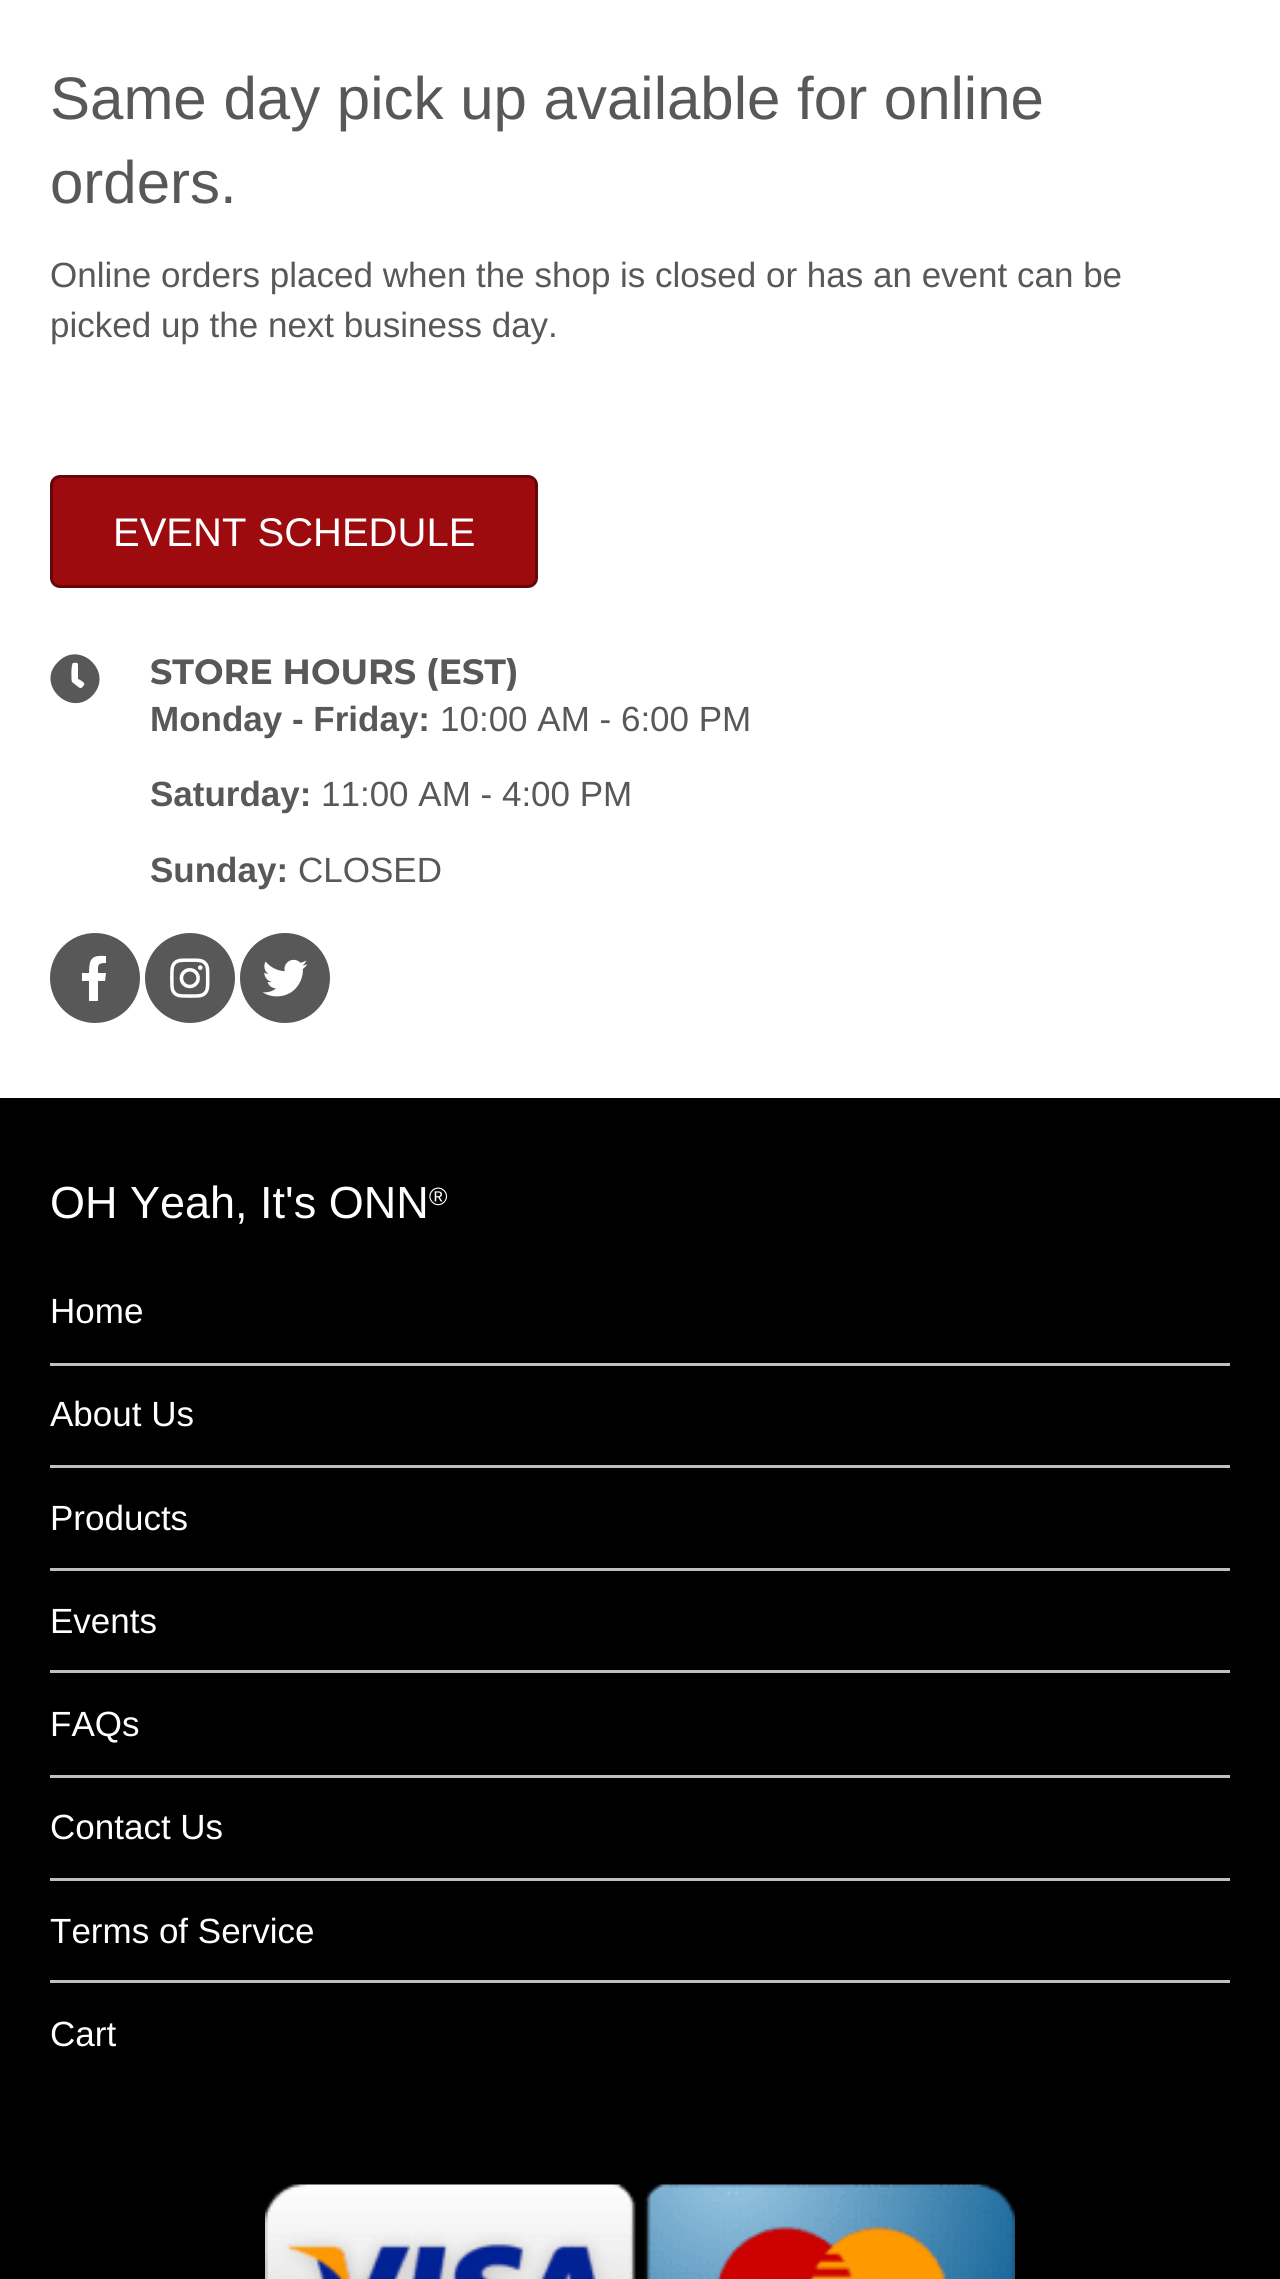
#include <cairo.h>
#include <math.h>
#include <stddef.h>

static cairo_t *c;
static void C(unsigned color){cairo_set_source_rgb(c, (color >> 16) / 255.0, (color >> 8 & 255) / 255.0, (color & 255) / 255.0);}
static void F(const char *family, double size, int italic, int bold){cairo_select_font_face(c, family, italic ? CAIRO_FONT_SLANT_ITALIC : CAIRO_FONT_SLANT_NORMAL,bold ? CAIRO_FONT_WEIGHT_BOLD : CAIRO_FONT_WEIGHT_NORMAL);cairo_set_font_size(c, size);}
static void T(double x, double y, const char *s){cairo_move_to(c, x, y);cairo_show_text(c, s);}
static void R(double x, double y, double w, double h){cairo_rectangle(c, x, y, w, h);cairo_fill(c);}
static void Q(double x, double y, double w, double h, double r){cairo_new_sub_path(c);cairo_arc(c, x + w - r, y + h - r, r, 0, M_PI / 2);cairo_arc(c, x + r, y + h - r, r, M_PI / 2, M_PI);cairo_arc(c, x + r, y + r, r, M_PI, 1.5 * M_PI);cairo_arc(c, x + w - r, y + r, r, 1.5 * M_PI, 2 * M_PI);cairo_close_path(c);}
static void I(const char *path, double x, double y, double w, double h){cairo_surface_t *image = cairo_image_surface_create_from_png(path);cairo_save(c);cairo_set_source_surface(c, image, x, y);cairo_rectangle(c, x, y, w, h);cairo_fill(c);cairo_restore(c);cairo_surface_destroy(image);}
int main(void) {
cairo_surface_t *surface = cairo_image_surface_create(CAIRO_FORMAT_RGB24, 1280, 2279);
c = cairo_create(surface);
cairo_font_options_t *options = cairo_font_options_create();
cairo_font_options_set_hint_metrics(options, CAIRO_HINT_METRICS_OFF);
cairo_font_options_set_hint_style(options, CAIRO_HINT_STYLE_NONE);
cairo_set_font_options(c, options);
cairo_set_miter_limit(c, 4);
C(0xffffff);
cairo_paint(c);
F("Liberation Sans",60,0,0);
C(0x585858);
T(50,119,"Same day pick up available for online");
T(50,203,"orders.");
F("Liberation Sans",35,0,0);
T(50,287,"Online orders placed when the shop is closed or has an event can be");
T(50,337,"picked up the next business day.");
C(0x9e0b0f);
Q(51.5,476.5,485,110,8.5);
cairo_fill_preserve(c);
C(0x65070a);
cairo_set_line_width(c,3);
cairo_stroke(c);
F("Liberation Sans",40,0,0);
C(0xffffff);
T(113,546,"EVENT SCHEDULE");
C(0x585858);
cairo_new_path(c);
cairo_move_to(c,58,662);
cairo_curve_to(c,80,639,115,673,92,696);
cairo_curve_to(c,70,718,35,684,58,662);
cairo_close_path(c);
cairo_move_to(c,84,685);
cairo_curve_to(c,86,683,79,679,78,679);
cairo_line_to(c,78,664);
cairo_curve_to(c,77,662,74,663,73,663);
cairo_curve_to(c,71,664,71,680,72,682);
cairo_line_to(c,77,686);
cairo_curve_to(c,81,689,81,689,84,685);
cairo_close_path(c);
cairo_fill(c);
F("Montserrat Thin",35,0,0);
T(150,684,"STORE HOURS (EST)");
F("Liberation Sans",35,0,1);
T(150,731,"Monday - Friday:");
F("Liberation Sans",35,0,0);
T(440,731,"10:00 AM - 6:00 PM");
F("Liberation Sans",35,0,1);
T(150,806,"Saturday:");
F("Liberation Sans",35,0,0);
T(321,806,"11:00 AM - 4:00 PM");
F("Liberation Sans",35,0,1);
T(150,882,"Sunday:");
F("Liberation Sans",35,0,0);
T(298,882,"CLOSED");
cairo_new_path(c);
cairo_arc(c,95,978,45,0,2 * M_PI);
cairo_fill(c);
C(0xffffff);
cairo_new_path(c);
cairo_move_to(c,105,981);
cairo_line_to(c,98,981);
cairo_line_to(c,98,1001);
cairo_line_to(c,89,1001);
cairo_line_to(c,89,981);
cairo_line_to(c,82,981);
cairo_line_to(c,82,973);
cairo_line_to(c,89,973);
cairo_curve_to(c,89,958,92,955,106,956);
cairo_line_to(c,106,963);
cairo_curve_to(c,97,963,98,965,98,973);
cairo_line_to(c,106,973);
cairo_close_path(c);
cairo_fill(c);
C(0x585858);
cairo_arc(c,190,978,45,0,2 * M_PI);
cairo_fill(c);
I("1.png",170,958,40,40);
cairo_arc(c,285,978,45,0,2 * M_PI);
cairo_fill(c);
I("2.png",262,959,46,38);
C(0x000000);
R(0,1098,1280,1181);
F("Liberation Sans",45,0,0);
C(0xffffff);
T(50,1218,"OH Yeah, It's ONN");
F("Liberation Sans",25,0,0);
T(429,1205,"®");
F("Liberation Sans",35,0,0);
T(50,1323,"Home");
C(0xbfbfbf);
R(50,1363,1180,3);
C(0xffffff);
T(50,1426,"About Us");
C(0xbfbfbf);
R(50,1465,1180,3);
C(0xffffff);
T(50,1530,"Products");
C(0xbfbfbf);
R(50,1568,1180,3);
C(0xffffff);
T(50,1633,"Events");
C(0xbfbfbf);
R(50,1670,1180,3);
C(0xffffff);
T(50,1736,"FAQs");
C(0xbfbfbf);
R(50,1775,1180,3);
C(0xffffff);
T(50,1839,"Contact Us");
C(0xbfbfbf);
R(50,1878,1180,3);
C(0xffffff);
T(50,1943,"Terms of Service");
C(0xbfbfbf);
R(50,1980,1180,3);
C(0xffffff);
T(50,2046,"Cart");
I("3.png",265,2184,750,95);
cairo_surface_write_to_png(surface, "o.png");
cairo_font_options_destroy(options);
cairo_destroy(c);
cairo_surface_destroy(surface);
return 0;
}
